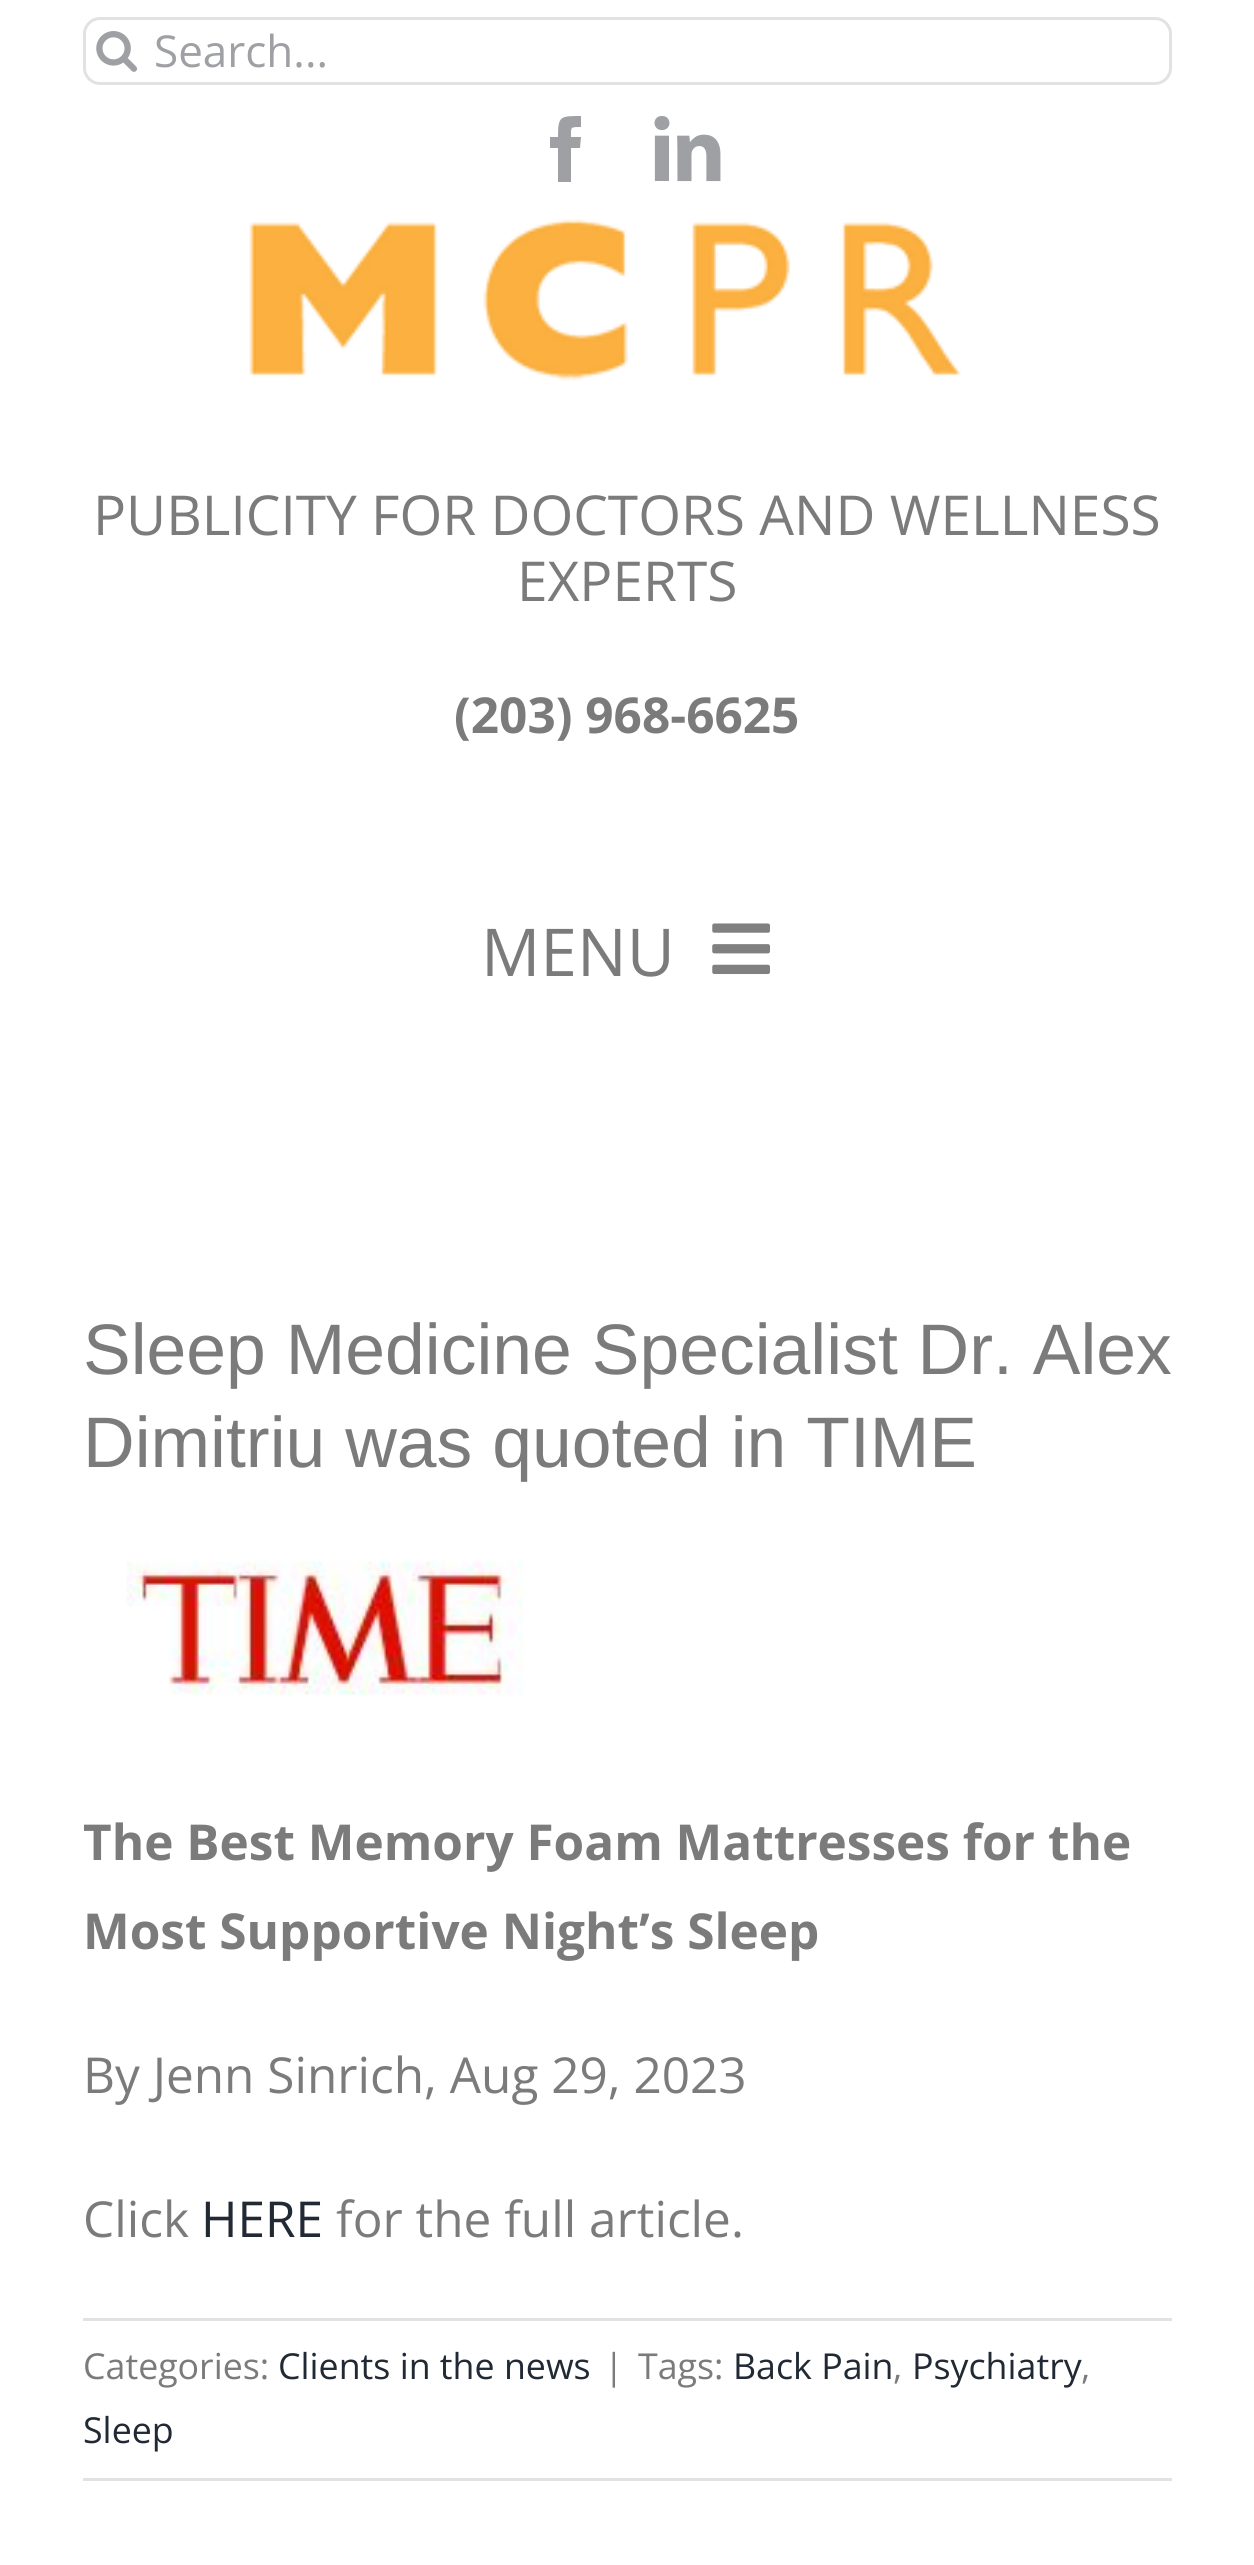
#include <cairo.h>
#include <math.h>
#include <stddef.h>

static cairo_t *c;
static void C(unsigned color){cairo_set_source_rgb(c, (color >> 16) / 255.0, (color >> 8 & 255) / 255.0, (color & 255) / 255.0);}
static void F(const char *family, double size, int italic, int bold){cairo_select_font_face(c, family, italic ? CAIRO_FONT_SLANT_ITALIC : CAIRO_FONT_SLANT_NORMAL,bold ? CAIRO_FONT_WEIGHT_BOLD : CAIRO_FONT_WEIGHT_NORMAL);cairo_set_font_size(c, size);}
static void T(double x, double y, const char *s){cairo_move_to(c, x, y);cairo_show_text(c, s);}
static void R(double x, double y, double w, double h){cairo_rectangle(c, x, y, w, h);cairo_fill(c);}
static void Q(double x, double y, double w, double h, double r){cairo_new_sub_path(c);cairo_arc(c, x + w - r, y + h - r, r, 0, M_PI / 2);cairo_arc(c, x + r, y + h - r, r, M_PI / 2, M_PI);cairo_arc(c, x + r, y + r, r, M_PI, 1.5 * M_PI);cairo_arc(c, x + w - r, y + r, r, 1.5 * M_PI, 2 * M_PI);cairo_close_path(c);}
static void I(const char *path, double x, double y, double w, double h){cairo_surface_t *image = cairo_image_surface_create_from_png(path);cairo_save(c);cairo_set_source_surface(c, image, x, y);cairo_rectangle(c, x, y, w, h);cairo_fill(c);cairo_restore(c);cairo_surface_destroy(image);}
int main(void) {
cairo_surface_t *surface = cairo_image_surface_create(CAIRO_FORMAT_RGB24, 1254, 2565);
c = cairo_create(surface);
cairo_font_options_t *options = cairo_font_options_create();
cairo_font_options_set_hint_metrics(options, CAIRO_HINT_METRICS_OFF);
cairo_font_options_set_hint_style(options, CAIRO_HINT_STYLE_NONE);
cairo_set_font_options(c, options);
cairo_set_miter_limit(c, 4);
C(0xffffff);
cairo_paint(c);
Q(84.5,18.5,1086,65,15.5);
C(0xe2e2e2);
cairo_set_line_width(c,3);
cairo_stroke(c);
I("1.png",96,31,42,41);
F("Open Sans",44,0,0);
C(0x9ea0a4);
T(154,67,"Search...");
cairo_new_path(c);
cairo_move_to(c,571,182);
cairo_line_to(c,558,182);
cairo_line_to(c,558,148);
cairo_line_to(c,550,148);
cairo_line_to(c,550,137);
cairo_line_to(c,558,137);
cairo_curve_to(c,558,116,560,116,581,116);
cairo_line_to(c,581,127);
cairo_curve_to(c,570,127,571,127,571,137);
cairo_line_to(c,581,137);
cairo_line_to(c,580,148);
cairo_line_to(c,571,148);
cairo_close_path(c);
cairo_fill(c);
I("2.png",654,116,67,66);
I("3.png",249,219,712,162);
F("Open Sans",55,0,0);
C(0x7b7b7b);
T(93,535,"PUBLICITY FOR DOCTORS AND WELLNESS");
T(517,601,"EXPERTS");
F("Open Sans",49.5,0,1);
T(454,733,"(203) 968-6625");
F("Open Sans",66,0,0);
T(481,976,"MENU");
I("4.png",712,923,58,51);
F("Liberation Sans",71.5,0,0);
T(83,1374,"Sleep Medicine Specialist Dr. Alex");
T(83,1467,"Dimitriu was quoted in TIME");
I("5.png",126,1559,398,138);
F("Open Sans",49.5,0,1);
T(83,1860,"The Best Memory Foam Mattresses for the");
T(83,1949,"Most Supportive Night’s Sleep");
F("Open Sans",49.5,0,0);
T(83,2093,"By Jenn Sinrich, Aug 29, 2023");
T(83,2237,"Click");
C(0x212934);
T(201,2237,"HERE");
C(0x7b7b7b);
T(336,2237,"for the full article.");
C(0xe2e2e2);
R(83,2318,1089,3);
R(83,2478,1089,3);
F("Open Sans",35.75,0,0);
C(0x7b7b7b);
T(83,2379,"Categories:");
C(0x212934);
T(278,2379,"Clients in the news");
C(0x7b7b7b);
T(604,2379,"|");
T(638,2379,"Tags:");
C(0x212934);
T(733,2379,"Back Pain");
C(0x7b7b7b);
T(893,2379,",");
C(0x212934);
T(912,2379,"Psychiatry");
C(0x7b7b7b);
T(1081,2379,",");
C(0x212934);
T(83,2443,"Sleep");
cairo_surface_write_to_png(surface, "o.png");
cairo_font_options_destroy(options);
cairo_destroy(c);
cairo_surface_destroy(surface);
return 0;
}
